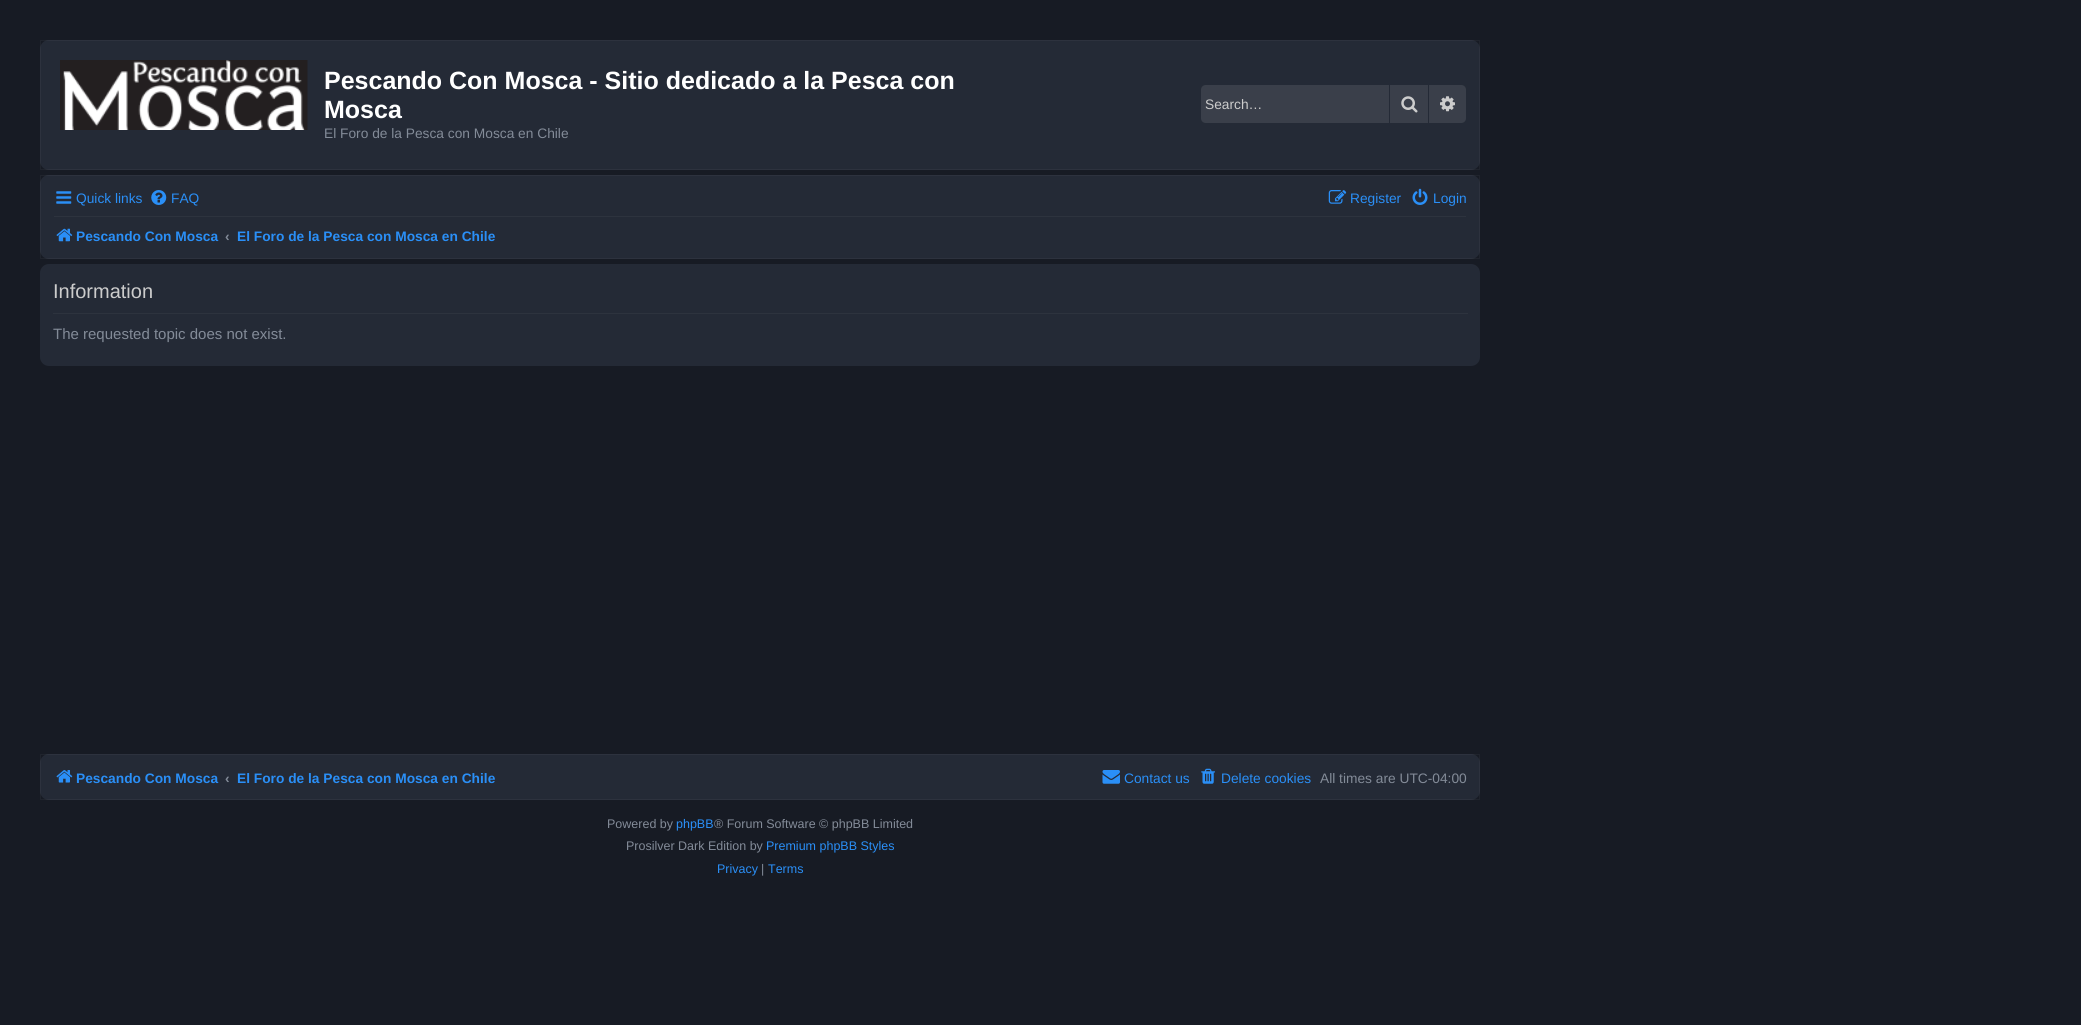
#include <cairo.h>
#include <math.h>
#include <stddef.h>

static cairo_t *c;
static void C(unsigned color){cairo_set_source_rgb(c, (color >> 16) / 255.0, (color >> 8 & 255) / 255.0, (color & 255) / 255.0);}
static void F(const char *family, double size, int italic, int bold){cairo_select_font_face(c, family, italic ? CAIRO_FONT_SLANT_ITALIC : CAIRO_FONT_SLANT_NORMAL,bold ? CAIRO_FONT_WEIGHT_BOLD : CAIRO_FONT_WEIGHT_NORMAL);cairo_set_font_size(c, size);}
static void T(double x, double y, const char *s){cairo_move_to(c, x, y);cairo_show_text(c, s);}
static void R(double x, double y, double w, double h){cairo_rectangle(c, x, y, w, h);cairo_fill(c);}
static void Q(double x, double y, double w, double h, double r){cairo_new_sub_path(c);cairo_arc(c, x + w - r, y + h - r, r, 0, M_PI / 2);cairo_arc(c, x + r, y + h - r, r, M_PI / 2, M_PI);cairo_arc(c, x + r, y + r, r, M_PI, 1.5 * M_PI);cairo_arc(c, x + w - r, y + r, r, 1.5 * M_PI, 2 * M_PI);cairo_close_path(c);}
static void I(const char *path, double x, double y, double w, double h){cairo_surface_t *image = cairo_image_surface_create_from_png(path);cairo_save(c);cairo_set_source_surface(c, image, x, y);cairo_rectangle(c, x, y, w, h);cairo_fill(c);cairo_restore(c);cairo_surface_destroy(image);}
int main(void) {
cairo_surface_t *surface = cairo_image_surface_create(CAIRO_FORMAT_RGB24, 2081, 1025);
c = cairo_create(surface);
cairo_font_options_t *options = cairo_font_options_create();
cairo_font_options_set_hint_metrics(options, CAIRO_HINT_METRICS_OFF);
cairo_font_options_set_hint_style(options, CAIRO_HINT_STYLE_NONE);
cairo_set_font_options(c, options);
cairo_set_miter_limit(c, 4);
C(0x171b24);
cairo_paint(c);
C(0x242a36);
Q(40,40,1440,130,9);
cairo_fill(c);
cairo_rectangle(c,40.5,40.5,1439,129);
cairo_set_source_rgba(c,1,1,1,0.04);
cairo_set_line_width(c,1);
cairo_stroke(c);
I("1.png",60,60,248,70);
F("Liberation Sans",25,0,1);
C(0xffffff);
T(324,89,"Pescando Con Mosca - Sitio dedicado a la Pesca con");
T(324,118,"Mosca");
F("Liberation Sans",13.75,0,0);
C(0x838b98);
T(324,138,"El Foro de la Pesca con Mosca en Chile");
C(0x3a3f4a);
cairo_new_path(c);
cairo_move_to(c,1206,85);
cairo_line_to(c,1389,85);
cairo_line_to(c,1389,123);
cairo_line_to(c,1206,123);
cairo_curve_to(c,1203,123,1201,121,1201,118);
cairo_line_to(c,1201,90);
cairo_curve_to(c,1201,87,1203,85,1206,85);
cairo_close_path(c);
cairo_fill(c);
C(0xcccccc);
T(1205,109,"Search…");
C(0x3a3f4a);
R(1390,85,38,38);
I("2.png",1401,96,17,17);
cairo_new_path(c);
cairo_move_to(c,1429,85);
cairo_line_to(c,1461,85);
cairo_curve_to(c,1464,85,1466,87,1466,90);
cairo_line_to(c,1466,118);
cairo_curve_to(c,1466,121,1464,123,1461,123);
cairo_line_to(c,1429,123);
cairo_close_path(c);
cairo_fill(c);
I("3.png",1440,96,15,16);
C(0x242a36);
Q(40,175,1440,84,9);
cairo_fill(c);
cairo_rectangle(c,40.5,175.5,1439,83);
cairo_set_source_rgba(c,1,1,1,0.04);
cairo_stroke(c);
I("4.png",56,191,16,13);
C(0x2a8ff7);
T(76,203,"Quick links");
I("5.png",151,190,16,15);
T(171,203,"FAQ");
I("6.png",1328,190,19,14);
T(1350,203,"Register");
I("7.png",1412,188,16,17);
T(1433,203,"Login");
C(0x2d333e);
R(54,216,1412,1);
I("8.png",56,228,17,14);
F("Liberation Sans",13.75,0,1);
C(0x2a8ff7);
T(76,241,"Pescando Con Mosca");
C(0x838b98);
T(225,241,"‹");
C(0x2a8ff7);
T(237,241,"El Foro de la Pesca con Mosca en Chile");
C(0x242a36);
Q(40,264,1440,102,9);
cairo_fill(c);
C(0x2d333e);
R(53,313,1415,1);
F("Liberation Sans",20,0,0);
C(0xcccccc);
T(53,298,"Information");
F("Liberation Sans",15,0,0);
C(0x838b98);
T(53,339,"The requested topic does not exist.");
C(0x242a36);
Q(40,754,1440,46,9);
cairo_fill(c);
cairo_rectangle(c,40.5,754.5,1439,45);
cairo_set_source_rgba(c,1,1,1,0.04);
cairo_stroke(c);
I("9.png",56,770,17,13);
F("Liberation Sans",13.75,0,1);
C(0x2a8ff7);
T(76,783,"Pescando Con Mosca");
C(0x838b98);
T(225,783,"‹");
C(0x2a8ff7);
T(237,783,"El Foro de la Pesca con Mosca en Chile");
I("10.png",1102,770,18,14);
F("Liberation Sans",13.75,0,0);
T(1124,783,"Contact us");
I("11.png",1201,768,14,16);
T(1221,783,"Delete cookies");
C(0x838b98);
T(1320,783,"All times are UTC-04:00");
F("Liberation Sans",12.5,0,0);
T(607,828,"Powered by");
C(0x2a8ff7);
T(676,828,"phpBB");
C(0x838b98);
T(714,828,"® Forum Software © phpBB Limited");
T(626,850,"Prosilver Dark Edition by");
C(0x2a8ff7);
T(766,850,"Premium phpBB Styles");
T(717,873,"Privacy");
C(0x838b98);
T(761,873,"|");
C(0x2a8ff7);
T(768,873,"Terms");
cairo_surface_write_to_png(surface, "o.png");
cairo_font_options_destroy(options);
cairo_destroy(c);
cairo_surface_destroy(surface);
return 0;
}
